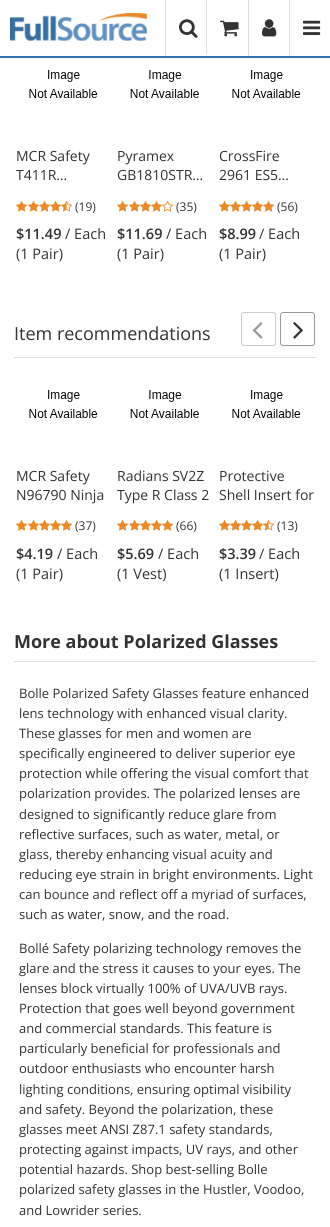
#include <cairo.h>
#include <math.h>
#include <stddef.h>

static cairo_t *c;
static void C(unsigned color){cairo_set_source_rgb(c, (color >> 16) / 255.0, (color >> 8 & 255) / 255.0, (color & 255) / 255.0);}
static void F(const char *family, double size, int italic, int bold){cairo_select_font_face(c, family, italic ? CAIRO_FONT_SLANT_ITALIC : CAIRO_FONT_SLANT_NORMAL,bold ? CAIRO_FONT_WEIGHT_BOLD : CAIRO_FONT_WEIGHT_NORMAL);cairo_set_font_size(c, size);}
static void T(double x, double y, const char *s){cairo_move_to(c, x, y);cairo_show_text(c, s);}
static void R(double x, double y, double w, double h){cairo_rectangle(c, x, y, w, h);cairo_fill(c);}
static void Q(double x, double y, double w, double h, double r){cairo_new_sub_path(c);cairo_arc(c, x + w - r, y + h - r, r, 0, M_PI / 2);cairo_arc(c, x + r, y + h - r, r, M_PI / 2, M_PI);cairo_arc(c, x + r, y + r, r, M_PI, 1.5 * M_PI);cairo_arc(c, x + w - r, y + r, r, 1.5 * M_PI, 2 * M_PI);cairo_close_path(c);}
static void I(const char *path, double x, double y, double w, double h){cairo_surface_t *image = cairo_image_surface_create_from_png(path);cairo_save(c);cairo_set_source_surface(c, image, x, y);cairo_rectangle(c, x, y, w, h);cairo_fill(c);cairo_restore(c);cairo_surface_destroy(image);}
int main(void) {
cairo_surface_t *surface = cairo_image_surface_create(CAIRO_FORMAT_RGB24, 330, 1227);
c = cairo_create(surface);
cairo_font_options_t *options = cairo_font_options_create();
cairo_font_options_set_hint_metrics(options, CAIRO_HINT_METRICS_OFF);
cairo_font_options_set_hint_style(options, CAIRO_HINT_STYLE_NONE);
cairo_set_font_options(c, options);
cairo_set_miter_limit(c, 4);
C(0xffffff);
cairo_paint(c);
C(0x3274b1);
R(0,56,330,2);
I("1.png",10,13,137,28);
C(0xdddddd);
R(165,0,1,56);
I("2.png",179,19,19,19);
R(206,0,1,55);
I("3.png",220,20,19,17);
R(248,0,1,56);
I("4.png",262,19,15,18);
R(289,0,1,56);
I("5.png",303,20,18,15);
I("6.png",29,70,69,28);
F("Open Sans",14,0,0);
C(0x333333);
T(16,161,"MCR Safety");
T(16,180,"T411R…");
I("7.png",16,201,12,11);
I("7.png",28,201,12,11);
I("8.png",39,201,12,11);
I("8.png",50,201,12,11);
I("9.png",61,201,11,11);
F("Open Sans",12,0,0);
T(75,211,"(19)");
F("Open Sans SemiBold",14.5,0,0);
T(16,239,"$11.49");
F("Open Sans",14.5,0,0);
T(65,239,"/ Each");
T(16,259,"(1 Pair)");
I("10.png",130,70,69,28);
F("Open Sans",14,0,0);
T(117,161,"Pyramex");
T(117,180,"GB1810STR…");
I("7.png",117,201,12,11);
I("7.png",129,201,12,11);
I("8.png",140,201,12,11);
I("8.png",151,201,12,11);
I("11.png",162,201,12,11);
F("Open Sans",12,0,0);
T(176,211,"(35)");
F("Open Sans SemiBold",14.5,0,0);
T(117,239,"$11.69");
F("Open Sans",14.5,0,0);
T(166,239,"/ Each");
T(117,259,"(1 Pair)");
I("6.png",232,70,69,28);
F("Open Sans",14,0,0);
T(219,161,"CrossFire");
T(219,180,"2961 ES5…");
I("7.png",219,201,12,11);
I("8.png",230,201,12,11);
I("8.png",241,201,12,11);
I("8.png",252,201,12,11);
I("8.png",263,201,12,11);
F("Open Sans",12,0,0);
T(277,211,"(56)");
F("Open Sans SemiBold",14.5,0,0);
T(219,239,"$8.99");
F("Open Sans",14.5,0,0);
T(259,239,"/ Each");
T(219,259,"(1 Pair)");
C(0xdddddd);
R(14,357,302,1);
F("Open Sans",18,0,0);
C(0x333333);
T(14,340,"Item recommendations");
Q(241.5,312.5,34,33,2.5);
C(0xcccccc);
cairo_set_line_width(c,1);
cairo_stroke(c);
I("12.png",252,322,11,17);
Q(280.5,312.5,34,33,2.5);
C(0x999999);
cairo_stroke(c);
I("13.png",293,322,10,17);
I("6.png",29,390,69,28);
F("Open Sans",14,0,0);
C(0x333333);
T(16,481,"MCR Safety");
T(16,500,"N96790 Ninja");
I("7.png",16,520,12,11);
I("7.png",28,520,12,11);
I("8.png",39,520,12,11);
I("8.png",50,520,12,11);
I("8.png",61,520,12,11);
F("Open Sans",12,0,0);
T(75,530,"(37)");
F("Open Sans SemiBold",14.5,0,0);
T(16,559,"$4.19");
F("Open Sans",14.5,0,0);
T(57,559,"/ Each");
T(16,579,"(1 Pair)");
I("10.png",130,390,69,28);
F("Open Sans",14,0,0);
T(117,481,"Radians SV2Z");
T(117,500,"Type R Class 2");
I("7.png",117,520,12,11);
I("7.png",129,520,12,11);
I("8.png",140,520,12,11);
I("8.png",151,520,12,11);
I("8.png",162,520,12,11);
F("Open Sans",12,0,0);
T(176,530,"(66)");
F("Open Sans SemiBold",14.5,0,0);
T(117,559,"$5.69");
F("Open Sans",14.5,0,0);
T(158,559,"/ Each");
T(117,579,"(1 Vest)");
I("6.png",232,390,69,28);
F("Open Sans",14,0,0);
T(219,481,"Protective");
T(219,500,"Shell Insert for");
I("7.png",219,520,12,11);
I("8.png",230,520,12,11);
I("8.png",241,520,12,11);
I("8.png",252,520,12,11);
I("9.png",263,520,11,11);
F("Open Sans",12,0,0);
T(277,530,"(13)");
F("Open Sans SemiBold",14.5,0,0);
T(219,559,"$3.39");
F("Open Sans",14.5,0,0);
T(259,559,"/ Each");
T(219,579,"(1 Insert)");
C(0xdddddd);
R(14,661,302,1);
F("Open Sans",18,0,1);
C(0x333333);
T(14,648,"More about Polarized Glasses");
F("Open Sans",13,0,0);
T(19,698,"Bolle Polarized Safety Glasses feature enhanced");
T(19,718,"lens technology with enhanced visual clarity.");
T(19,738,"These glasses for men and women are");
T(19,758,"specifically engineered to deliver superior eye");
T(19,778,"protection while offering the visual comfort that");
T(19,798,"polarization provides. The polarized lenses are");
T(19,819,"designed to significantly reduce glare from");
T(19,839,"reflective surfaces, such as water, metal, or");
T(19,859,"glass, thereby enhancing visual acuity and");
T(19,879,"reducing eye strain in bright environments. Light");
T(19,899,"can bounce and reflect off a myriad of surfaces,");
T(19,919,"such as water, snow, and the road.");
T(19,953,"Bollé Safety polarizing technology removes the");
T(19,973,"glare and the stress it causes to your eyes. The");
T(19,993,"lenses block virtually 100% of UVA/UVB rays.");
T(19,1013,"Protection that goes well beyond government");
T(19,1033,"and commercial standards. This feature is");
T(19,1053,"particularly beneficial for professionals and");
T(19,1073,"outdoor enthusiasts who encounter harsh");
T(19,1094,"lighting conditions, ensuring optimal visibility");
T(19,1114,"and safety. Beyond the polarization, these");
T(19,1134,"glasses meet ANSI Z87.1 safety standards,");
T(19,1154,"protecting against impacts, UV rays, and other");
T(19,1174,"potential hazards. Shop best-selling Bolle");
T(19,1194,"polarized safety glasses in the Hustler, Voodoo,");
T(19,1215,"and Lowrider series.");
cairo_surface_write_to_png(surface, "o.png");
cairo_font_options_destroy(options);
cairo_destroy(c);
cairo_surface_destroy(surface);
return 0;
}
